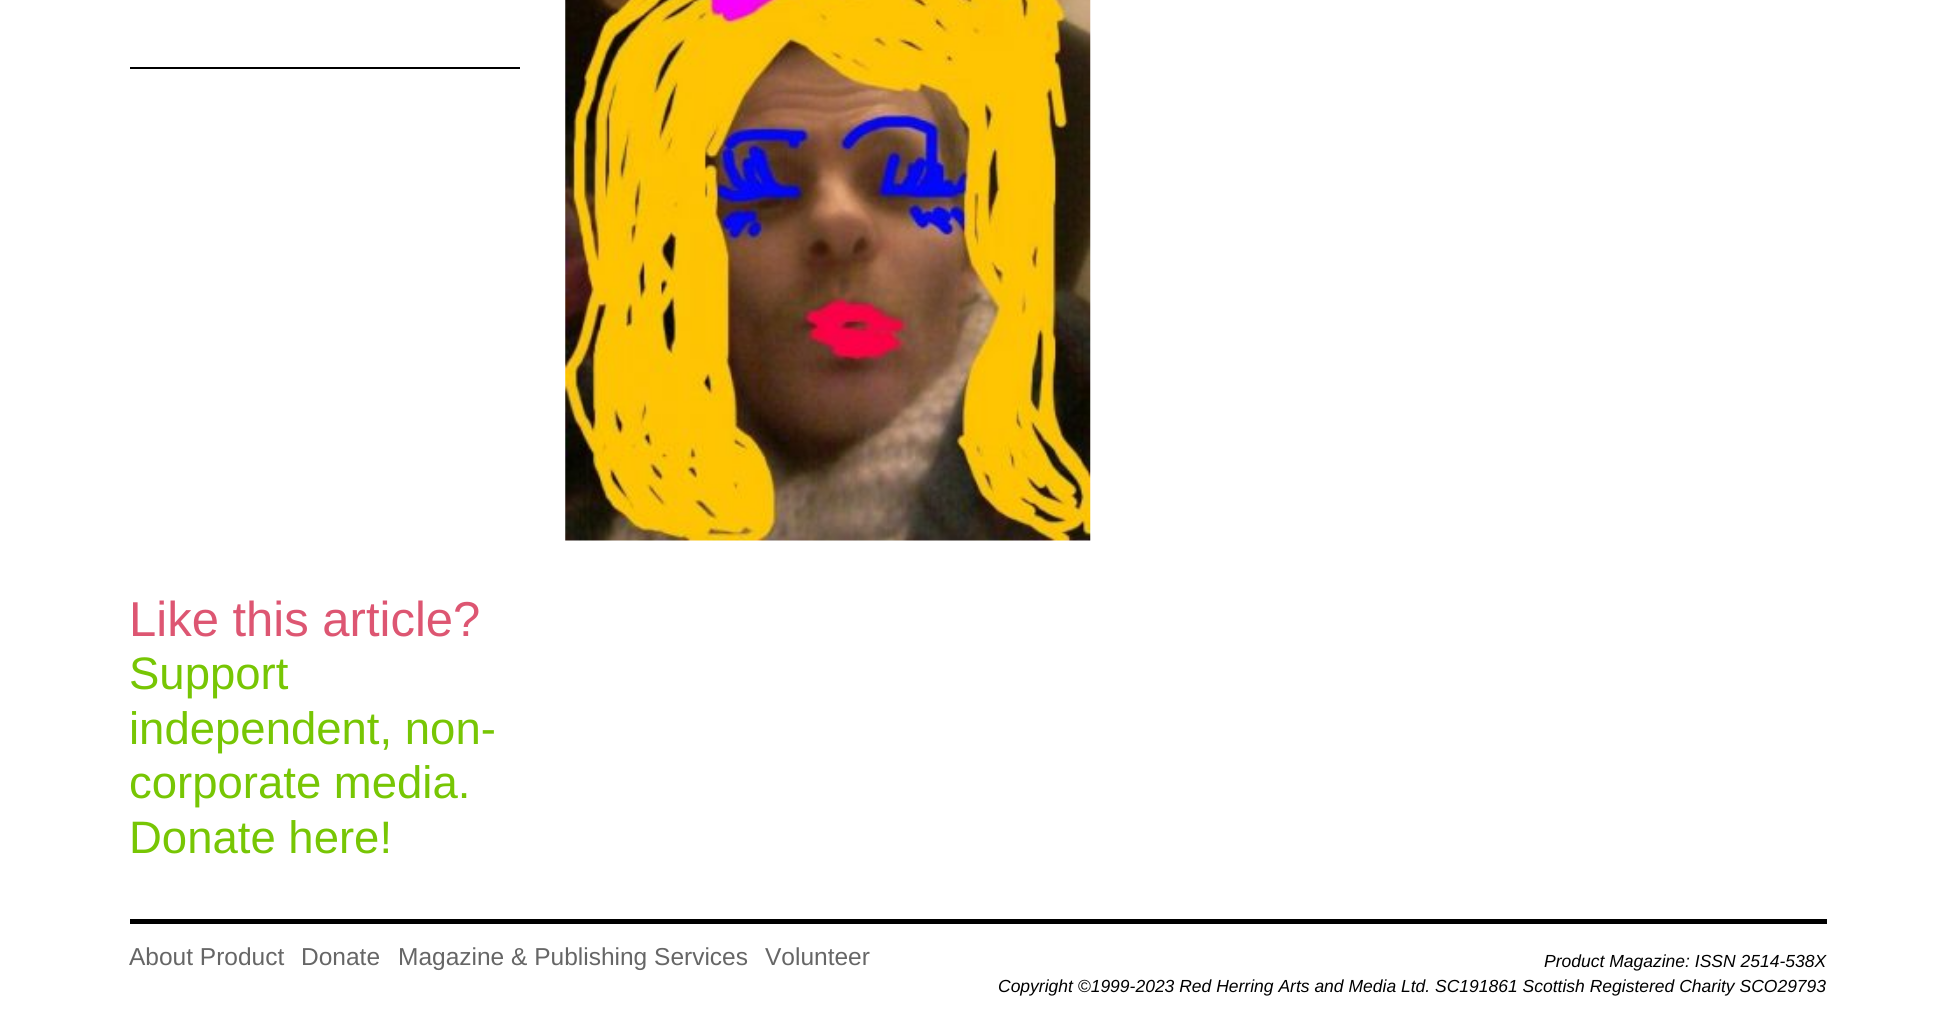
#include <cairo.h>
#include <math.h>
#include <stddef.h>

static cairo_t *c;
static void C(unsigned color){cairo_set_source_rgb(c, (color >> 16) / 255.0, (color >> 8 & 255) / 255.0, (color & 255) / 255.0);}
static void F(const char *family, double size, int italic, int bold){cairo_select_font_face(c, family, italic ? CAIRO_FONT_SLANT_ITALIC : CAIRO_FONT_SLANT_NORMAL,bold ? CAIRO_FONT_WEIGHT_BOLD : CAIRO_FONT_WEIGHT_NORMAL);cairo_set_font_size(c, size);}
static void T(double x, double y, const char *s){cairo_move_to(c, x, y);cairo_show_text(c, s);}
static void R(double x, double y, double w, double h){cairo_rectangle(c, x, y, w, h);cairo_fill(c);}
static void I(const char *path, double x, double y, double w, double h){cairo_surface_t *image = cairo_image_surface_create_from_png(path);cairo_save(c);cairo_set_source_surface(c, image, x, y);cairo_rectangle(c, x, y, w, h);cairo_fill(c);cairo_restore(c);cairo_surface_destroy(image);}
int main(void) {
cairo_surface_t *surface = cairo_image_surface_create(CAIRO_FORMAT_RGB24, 1954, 1025);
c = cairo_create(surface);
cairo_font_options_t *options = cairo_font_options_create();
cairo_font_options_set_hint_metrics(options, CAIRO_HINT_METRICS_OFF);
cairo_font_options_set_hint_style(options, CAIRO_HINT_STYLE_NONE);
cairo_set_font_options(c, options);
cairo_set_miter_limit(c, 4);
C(0xffffff);
cairo_paint(c);
I("1.png",565,0,526,541);
C(0x000000);
R(130,67,390,2);
F("Liberation Sans",49,0,0);
C(0xdd5672);
T(129,636,"Like this article?");
F("Liberation Sans",45.5,0,0);
C(0x77c604);
T(129,689,"Support");
T(129,744,"independent, non-");
T(129,798,"corporate media.");
T(129,853,"Donate here!");
C(0x000000);
R(130,919,1697,5);
F("Liberation Sans",24.5,0,0);
C(0x666666);
T(129,965,"About Product");
T(301,965,"Donate");
T(398,965,"Magazine & Publishing Services");
T(765,965,"Volunteer");
F("Liberation Sans",17.5,1,0);
C(0x000000);
T(1544,967,"Product Magazine: ISSN 2514-538X");
T(998,992,"Copyright ©1999-2023 Red Herring Arts and Media Ltd. SC191861 Scottish Registered Charity SCO29793");
cairo_surface_write_to_png(surface, "o.png");
cairo_font_options_destroy(options);
cairo_destroy(c);
cairo_surface_destroy(surface);
return 0;
}
